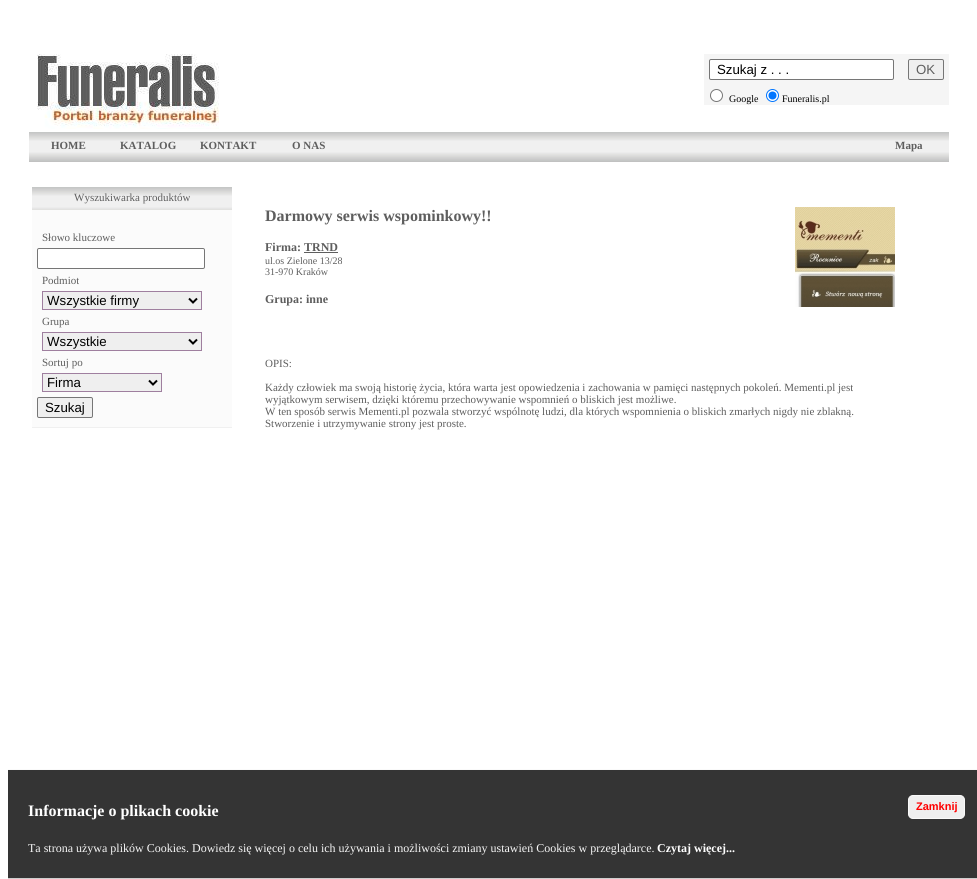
#include <cairo.h>
#include <math.h>
#include <stddef.h>

static cairo_t *c;
static void C(unsigned color){cairo_set_source_rgb(c, (color >> 16) / 255.0, (color >> 8 & 255) / 255.0, (color & 255) / 255.0);}
static void F(const char *family, double size, int italic, int bold){cairo_select_font_face(c, family, italic ? CAIRO_FONT_SLANT_ITALIC : CAIRO_FONT_SLANT_NORMAL,bold ? CAIRO_FONT_WEIGHT_BOLD : CAIRO_FONT_WEIGHT_NORMAL);cairo_set_font_size(c, size);}
static void T(double x, double y, const char *s){cairo_move_to(c, x, y);cairo_show_text(c, s);}
static void R(double x, double y, double w, double h){cairo_rectangle(c, x, y, w, h);cairo_fill(c);}
static void Q(double x, double y, double w, double h, double r){cairo_new_sub_path(c);cairo_arc(c, x + w - r, y + h - r, r, 0, M_PI / 2);cairo_arc(c, x + r, y + h - r, r, M_PI / 2, M_PI);cairo_arc(c, x + r, y + r, r, M_PI, 1.5 * M_PI);cairo_arc(c, x + w - r, y + r, r, 1.5 * M_PI, 2 * M_PI);cairo_close_path(c);}
static void I(const char *path, double x, double y, double w, double h){cairo_surface_t *image = cairo_image_surface_create_from_png(path);cairo_save(c);cairo_set_source_surface(c, image, x, y);cairo_rectangle(c, x, y, w, h);cairo_fill(c);cairo_restore(c);cairo_surface_destroy(image);}
int main(void) {
cairo_surface_t *surface = cairo_image_surface_create(CAIRO_FORMAT_RGB24, 977, 879);
c = cairo_create(surface);
cairo_font_options_t *options = cairo_font_options_create();
cairo_font_options_set_hint_metrics(options, CAIRO_HINT_METRICS_OFF);
cairo_font_options_set_hint_style(options, CAIRO_HINT_STYLE_NONE);
cairo_set_font_options(c, options);
cairo_set_miter_limit(c, 4);
C(0xffffff);
cairo_paint(c);
I("1.png",37,54,182,75);
C(0xf5f5f5);
R(704,54,245,51);
C(0xffffff);
Q(709.5,59.5,184,20,1.5);
cairo_fill_preserve(c);
C(0x767676);
cairo_set_line_width(c,1);
cairo_stroke(c);
F("Liberation Sans",13.25,0,0);
C(0x000000);
T(717,74,"Szukaj z . . .");
C(0xefefef);
Q(908.5,59.5,35,20,1.5);
cairo_fill_preserve(c);
C(0x767676);
cairo_stroke(c);
C(0x5e5e5e);
T(916,74,"OK");
C(0xffffff);
cairo_new_path(c);
cairo_arc(c,716.5,95.5,6,0,2 * M_PI);
cairo_fill_preserve(c);
C(0x767676);
cairo_stroke(c);
F("Liberation Serif",10,0,0);
C(0x000000);
T(729,102,"Google");
C(0xffffff);
cairo_new_path(c);
cairo_arc(c,772.5,95.5,6,0,2 * M_PI);
cairo_fill_preserve(c);
C(0x0075ff);
cairo_stroke(c);
cairo_arc(c,772.5,95.5,4,0,2 * M_PI);
cairo_fill(c);
C(0x000000);
T(782,102,"Funeralis.pl");
I("2.png",29,132,920,30);
F("Liberation Serif",11,0,1);
C(0x5e5e5e);
T(51,149,"HOME");
T(120,149,"KATALOG");
T(200,149,"KONTAKT");
T(292,149,"O NAS");
T(895,149,"Mapa");
C(0xfbfbfb);
R(32,210,200,217);
C(0xf0f0f0);
R(32,427,200,1);
I("3.png",32,187,200,23);
F("Liberation Serif",11,0,0);
C(0x5e5e5e);
T(74,201,"Wyszukiwarka produktów");
T(42,241,"Słowo kluczowe");
C(0xffffff);
Q(37.5,248.5,167,20,1.5);
cairo_fill_preserve(c);
C(0x767676);
cairo_stroke(c);
C(0x5e5e5e);
T(42,284,"Podmiot");
C(0xefefef);
cairo_rectangle(c,42.5,291.5,159,18);
cairo_fill_preserve(c);
C(0x9f7f9f);
cairo_stroke(c);
cairo_new_path(c);
cairo_move_to(c,189,298.5);
cairo_line_to(c,193,302.5);
cairo_line_to(c,197,298.5);
C(0x000000);
cairo_set_line_width(c,2);
cairo_stroke(c);
F("Liberation Sans",13.25,0,0);
T(47,305,"Wszystkie firmy");
F("Liberation Serif",11,0,0);
C(0x5e5e5e);
T(42,325,"Grupa");
C(0xefefef);
cairo_rectangle(c,42.5,332.5,159,18);
cairo_fill_preserve(c);
C(0x9f7f9f);
cairo_set_line_width(c,1);
cairo_stroke(c);
cairo_new_path(c);
cairo_move_to(c,189,339.5);
cairo_line_to(c,193,343.5);
cairo_line_to(c,197,339.5);
C(0x000000);
cairo_set_line_width(c,2);
cairo_stroke(c);
F("Liberation Sans",13.25,0,0);
T(47,346,"Wszystkie");
F("Liberation Serif",11,0,0);
C(0x5e5e5e);
T(42,366,"Sortuj po");
C(0xefefef);
cairo_rectangle(c,42.5,373.5,119,18);
cairo_fill_preserve(c);
C(0x9f7f9f);
cairo_set_line_width(c,1);
cairo_stroke(c);
cairo_new_path(c);
cairo_move_to(c,149,380.5);
cairo_line_to(c,153,384.5);
cairo_line_to(c,157,380.5);
C(0x000000);
cairo_set_line_width(c,2);
cairo_stroke(c);
F("Liberation Sans",13.25,0,0);
T(47,387,"Firma");
C(0xefefef);
Q(37.5,397.5,55,20,1.5);
cairo_fill_preserve(c);
C(0x767676);
cairo_set_line_width(c,1);
cairo_stroke(c);
C(0x000000);
T(45,412,"Szukaj");
F("Liberation Serif",16,0,1);
C(0x5e5e5e);
T(265,221,"Darmowy serwis wspominkowy!!");
F("Liberation Serif",12,0,1);
T(265,251,"Firma: TRND");
R(304,252,34,1);
F("Liberation Serif",10,0,0);
T(265,264,"ul.os Zielone 13/28");
T(265,275,"31-970 Kraków");
F("Liberation Serif",12,0,1);
T(265,303,"Grupa: inne");
I("4.png",795,207,100,100);
F("Liberation Serif",11,0,0);
T(265,367,"OPIS:");
T(265,391,"Każdy człowiek ma swoją historię życia, która warta jest opowiedzenia i zachowania w pamięci następnych pokoleń. Mementi.pl jest");
T(265,403,"wyjątkowym serwisem, dzięki któremu przechowywanie wspomnień o bliskich jest możliwe.");
T(265,415,"W ten sposób serwis Mementi.pl pozwala stworzyć wspólnotę ludzi, dla których wspomnienia o bliskich zmarłych nigdy nie zblakną.");
T(265,427,"Stworzenie i utrzymywanie strony jest proste.");
C(0x343434);
R(8,770,969,108);
C(0xfafafa);
R(8,769,969,1);
C(0xcecece);
R(8,878,969,1);
F("Liberation Serif",16,0,1);
C(0xffffff);
T(28,816,"Informacje o plikach cookie");
F("Liberation Serif",12,0,0);
C(0xf5f5f5);
T(28,852,"Ta strona używa plików Cookies. Dowiedz się więcej o celu ich używania i możliwości zmiany ustawień Cookies w przeglądarce.");
F("Liberation Serif",12,0,1);
C(0xffffff);
T(657,852,"Czytaj więcej...");
C(0xefefef);
Q(908.5,795.5,56,23,4.5);
cairo_fill_preserve(c);
C(0xfafafa);
cairo_stroke(c);
F("Liberation Sans",11,0,1);
C(0xff0000);
T(916,810,"Zamknij");
cairo_surface_write_to_png(surface, "o.png");
cairo_font_options_destroy(options);
cairo_destroy(c);
cairo_surface_destroy(surface);
return 0;
}
